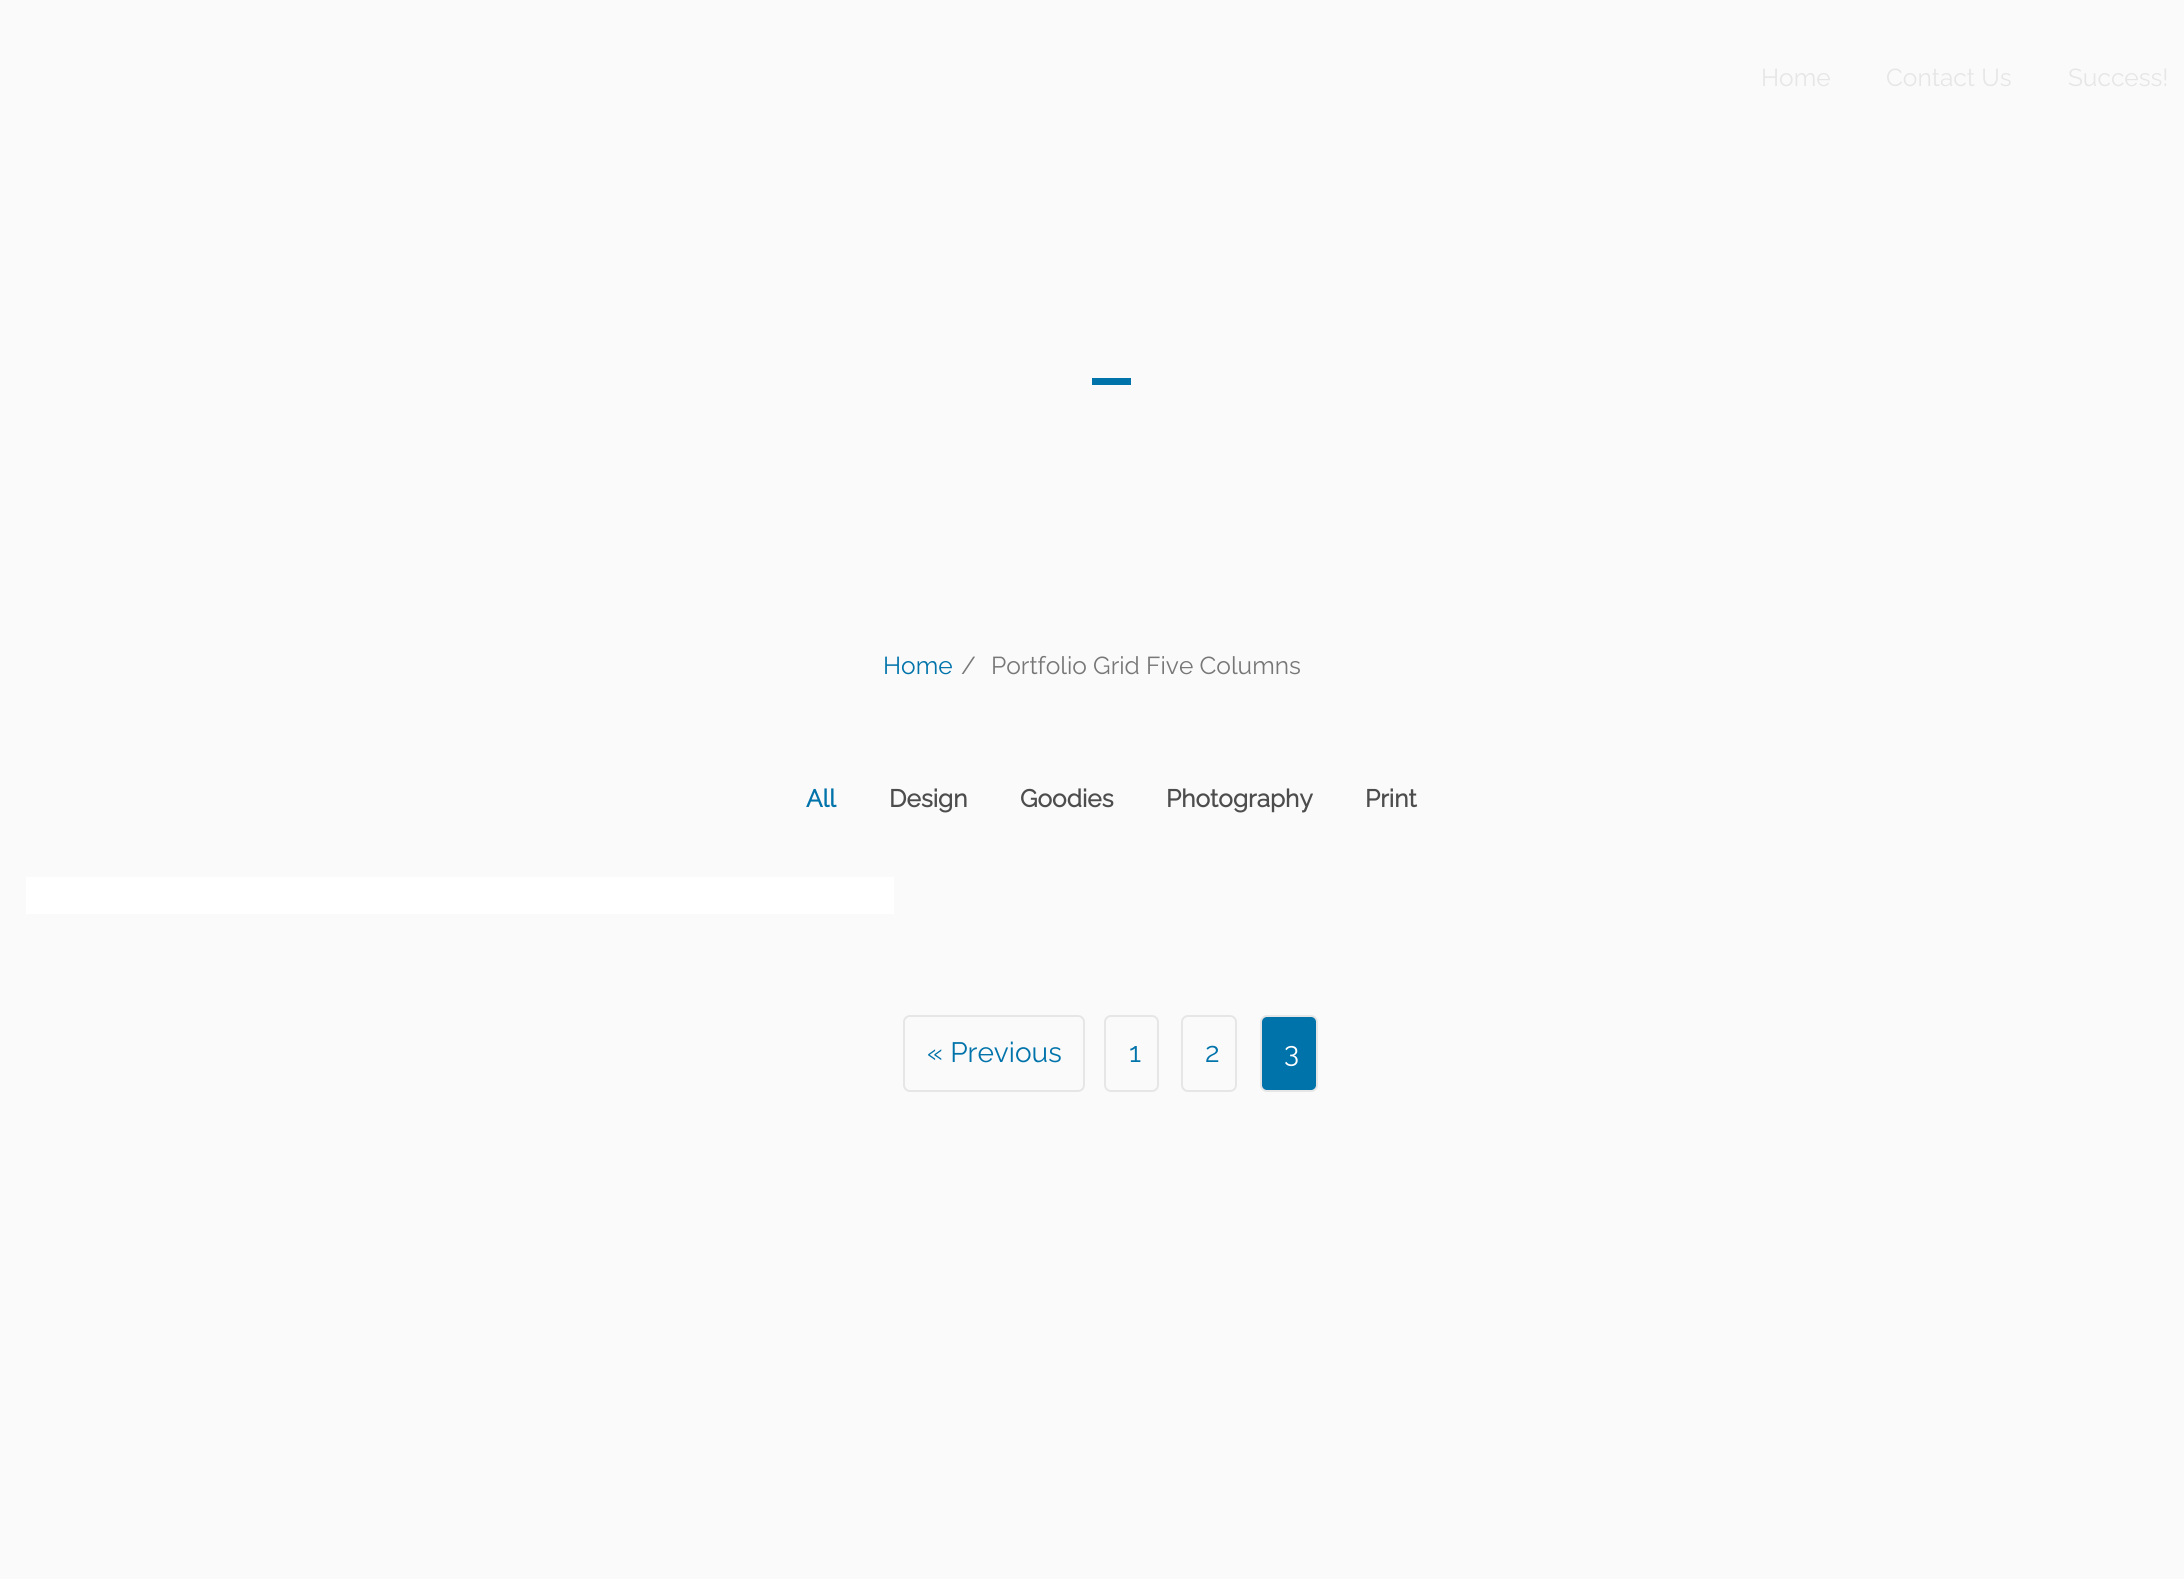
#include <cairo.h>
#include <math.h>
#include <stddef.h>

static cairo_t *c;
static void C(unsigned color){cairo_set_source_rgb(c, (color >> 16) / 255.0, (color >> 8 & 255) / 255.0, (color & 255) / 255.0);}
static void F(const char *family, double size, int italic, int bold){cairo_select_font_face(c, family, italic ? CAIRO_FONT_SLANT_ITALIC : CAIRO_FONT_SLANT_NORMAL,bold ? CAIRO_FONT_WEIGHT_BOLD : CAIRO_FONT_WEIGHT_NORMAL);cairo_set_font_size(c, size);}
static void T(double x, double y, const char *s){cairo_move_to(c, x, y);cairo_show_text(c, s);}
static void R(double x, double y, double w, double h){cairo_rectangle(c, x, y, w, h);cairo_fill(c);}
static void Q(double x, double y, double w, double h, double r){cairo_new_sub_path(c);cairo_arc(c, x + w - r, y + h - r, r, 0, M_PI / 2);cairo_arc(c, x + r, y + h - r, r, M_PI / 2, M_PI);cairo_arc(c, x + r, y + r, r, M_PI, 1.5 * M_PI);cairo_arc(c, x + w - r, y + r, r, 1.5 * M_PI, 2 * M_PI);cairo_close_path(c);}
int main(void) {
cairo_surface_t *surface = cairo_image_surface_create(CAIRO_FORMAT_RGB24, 2184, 1579);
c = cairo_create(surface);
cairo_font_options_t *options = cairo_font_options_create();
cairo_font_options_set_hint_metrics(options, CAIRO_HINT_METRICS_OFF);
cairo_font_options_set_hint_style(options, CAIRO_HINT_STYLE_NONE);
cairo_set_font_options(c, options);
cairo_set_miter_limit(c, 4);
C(0xfafafa);
cairo_paint(c);
F("Raleway Thin",24.5,0,0);
C(0xe6e6e6);
T(1761,86,"Home");
T(1886,86,"Contact Us");
T(2068,86,"Success!");
C(0x0073aa);
R(1092,378,39,7);
T(883,674,"Home");
C(0x777777);
T(961,674,"/");
T(991,674,"Portfolio Grid Five Columns");
F("Raleway",24.5,0,1);
C(0x0073aa);
T(806,807,"All");
C(0x4d4d4d);
T(889,807,"Design");
T(1020,807,"Goodies");
T(1166,807,"Photography");
T(1365,807,"Print");
C(0xffffff);
R(26,877,868,37);
Q(904,1016,180,75,6);
C(0xe6e6e6);
cairo_stroke(c);
F("Raleway Thin",28,0,0);
C(0x0073aa);
T(927,1062,"« Previous");
Q(1105,1016,53,75,6);
C(0xe6e6e6);
cairo_stroke(c);
C(0x0073aa);
T(1129,1062,"1");
Q(1182,1016,54,75,6);
C(0xe6e6e6);
cairo_stroke(c);
C(0x0073aa);
T(1205,1062,"2");
Q(1261,1016,56,75,6);
cairo_fill_preserve(c);
C(0xe6e6e6);
cairo_stroke(c);
C(0xffffff);
T(1284,1062,"3");
cairo_surface_write_to_png(surface, "o.png");
cairo_font_options_destroy(options);
cairo_destroy(c);
cairo_surface_destroy(surface);
return 0;
}
